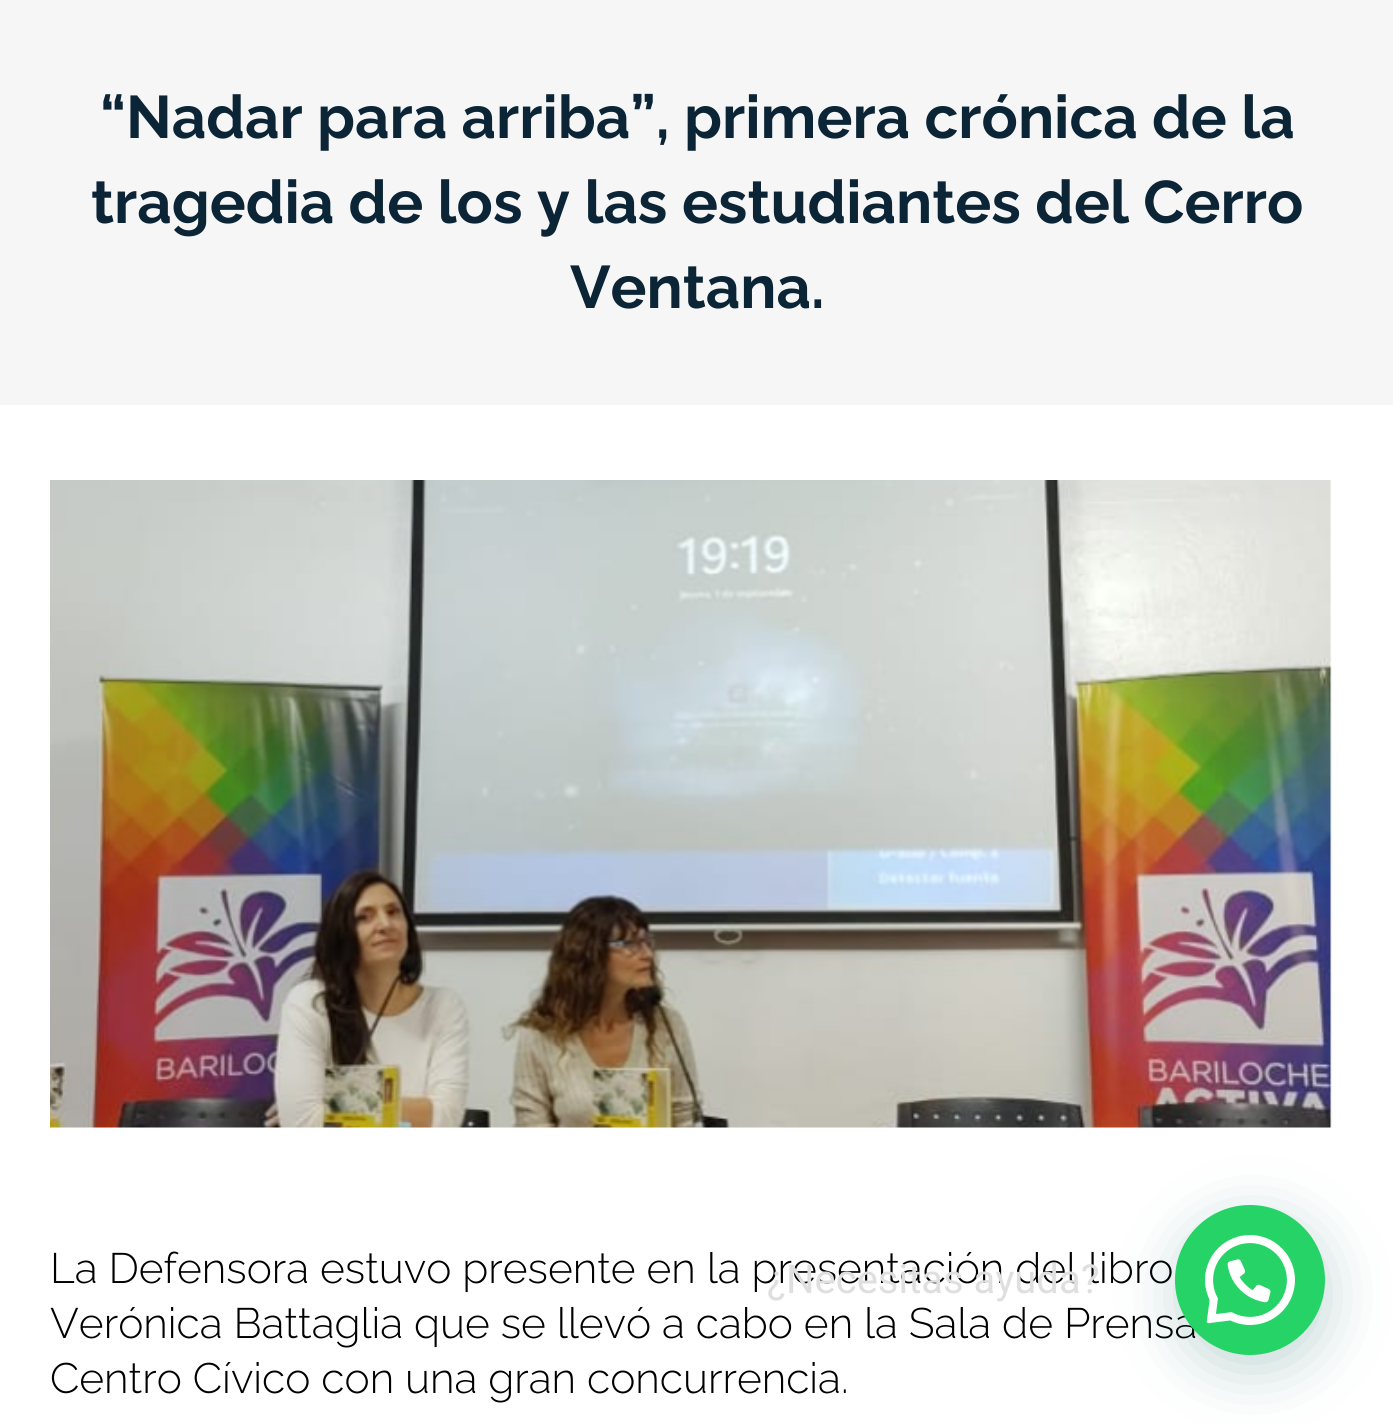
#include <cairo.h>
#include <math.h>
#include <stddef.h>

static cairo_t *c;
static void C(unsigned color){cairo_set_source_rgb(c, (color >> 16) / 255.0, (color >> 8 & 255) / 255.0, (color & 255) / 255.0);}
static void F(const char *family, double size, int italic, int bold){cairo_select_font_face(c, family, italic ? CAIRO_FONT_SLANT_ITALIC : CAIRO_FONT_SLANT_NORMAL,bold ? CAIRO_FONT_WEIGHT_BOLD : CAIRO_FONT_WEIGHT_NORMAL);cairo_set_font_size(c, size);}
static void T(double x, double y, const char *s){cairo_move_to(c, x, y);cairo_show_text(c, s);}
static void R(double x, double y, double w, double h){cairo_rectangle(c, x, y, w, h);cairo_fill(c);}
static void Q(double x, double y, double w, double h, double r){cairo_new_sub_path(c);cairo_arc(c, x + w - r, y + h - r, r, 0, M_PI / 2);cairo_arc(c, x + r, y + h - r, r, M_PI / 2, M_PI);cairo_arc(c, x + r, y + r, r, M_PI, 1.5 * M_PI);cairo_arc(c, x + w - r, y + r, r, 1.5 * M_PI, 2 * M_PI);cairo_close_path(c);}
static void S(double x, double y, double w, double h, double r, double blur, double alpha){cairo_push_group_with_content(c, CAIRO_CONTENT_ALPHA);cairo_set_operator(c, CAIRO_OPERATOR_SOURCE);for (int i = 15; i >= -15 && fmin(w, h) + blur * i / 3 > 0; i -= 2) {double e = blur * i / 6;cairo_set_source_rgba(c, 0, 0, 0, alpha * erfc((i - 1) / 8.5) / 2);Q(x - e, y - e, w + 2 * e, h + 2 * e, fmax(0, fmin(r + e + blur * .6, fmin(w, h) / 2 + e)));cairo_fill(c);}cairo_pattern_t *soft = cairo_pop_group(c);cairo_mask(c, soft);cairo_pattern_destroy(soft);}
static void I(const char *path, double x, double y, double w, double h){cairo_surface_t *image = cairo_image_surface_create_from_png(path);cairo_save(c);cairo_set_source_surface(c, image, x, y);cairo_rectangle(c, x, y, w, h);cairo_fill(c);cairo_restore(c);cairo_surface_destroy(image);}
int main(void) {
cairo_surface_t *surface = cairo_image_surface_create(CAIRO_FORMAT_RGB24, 1393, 1423);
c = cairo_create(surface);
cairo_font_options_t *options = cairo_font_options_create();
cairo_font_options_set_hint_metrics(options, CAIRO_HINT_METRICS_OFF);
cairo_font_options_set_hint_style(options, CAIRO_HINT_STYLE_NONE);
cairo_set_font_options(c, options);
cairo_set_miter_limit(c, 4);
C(0xffffff);
cairo_paint(c);
C(0xf6f6f6);
R(0,0,1393,405);
F("Raleway",60,0,1);
C(0x0b2536);
T(100,138,"“Nadar para arriba”, primera crónica de la");
T(91,223,"tragedia de los y las estudiantes del Cerro");
T(570,308,"Ventana.");
I("1.png",50,480,1282,648);
F("Raleway Light",42.5,0,0);
C(0x000000);
T(50,1283,"La Defensora estuvo presente en la presentación del libro");
T(50,1338,"Verónica Battaglia que se llevó a cabo en la Sala de Prensa");
T(50,1393,"Centro Cívico con una gran concurrencia.");
C(0x075e54);
S(1178,1220,150,150,75,30,.24);
C(0x25d366);
cairo_arc(c,1250,1280,75,0,2 * M_PI);
cairo_fill(c);
I("2.png",1205,1235,90,90);
F("Roboto",40,0,0);
C(0xdfdfdf);
T(767,1293,"¿Necesitas ayuda?");
cairo_surface_write_to_png(surface, "o.png");
cairo_font_options_destroy(options);
cairo_destroy(c);
cairo_surface_destroy(surface);
return 0;
}
